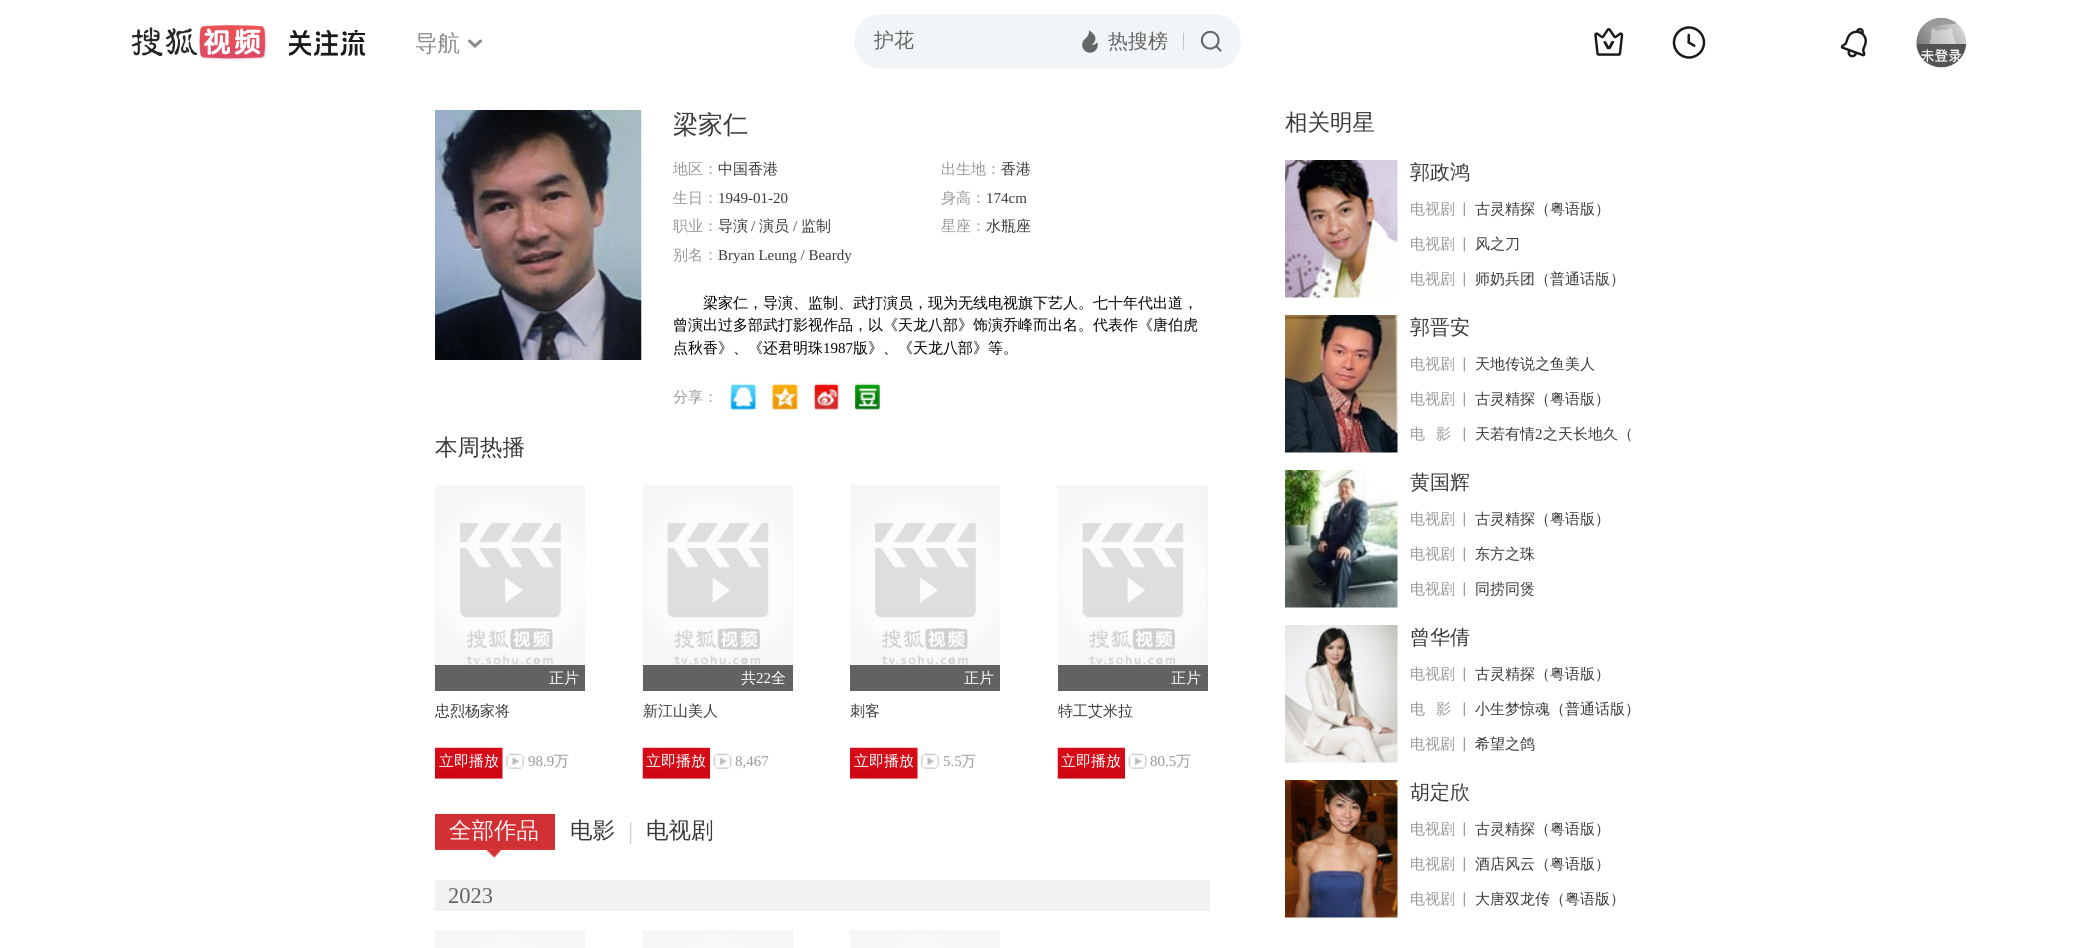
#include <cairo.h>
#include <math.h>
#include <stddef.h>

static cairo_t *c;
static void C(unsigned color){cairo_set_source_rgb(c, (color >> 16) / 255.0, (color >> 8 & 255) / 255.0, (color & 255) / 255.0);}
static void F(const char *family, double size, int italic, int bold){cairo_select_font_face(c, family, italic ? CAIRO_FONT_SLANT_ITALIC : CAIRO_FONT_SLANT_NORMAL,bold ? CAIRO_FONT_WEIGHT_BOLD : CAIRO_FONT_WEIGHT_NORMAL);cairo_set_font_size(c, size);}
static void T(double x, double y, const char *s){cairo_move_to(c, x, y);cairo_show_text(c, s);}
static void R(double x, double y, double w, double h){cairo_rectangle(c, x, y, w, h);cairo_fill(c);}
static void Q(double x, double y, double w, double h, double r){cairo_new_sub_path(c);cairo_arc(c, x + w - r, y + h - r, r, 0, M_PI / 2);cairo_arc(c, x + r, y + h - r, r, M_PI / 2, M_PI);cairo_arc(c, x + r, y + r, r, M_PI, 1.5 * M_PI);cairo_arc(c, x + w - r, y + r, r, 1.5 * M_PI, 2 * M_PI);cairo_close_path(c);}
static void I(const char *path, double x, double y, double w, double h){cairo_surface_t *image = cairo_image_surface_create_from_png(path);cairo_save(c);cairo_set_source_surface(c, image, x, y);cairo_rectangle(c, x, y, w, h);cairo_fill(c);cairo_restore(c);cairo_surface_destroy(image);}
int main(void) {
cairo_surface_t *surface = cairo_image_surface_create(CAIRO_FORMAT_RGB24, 2094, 948);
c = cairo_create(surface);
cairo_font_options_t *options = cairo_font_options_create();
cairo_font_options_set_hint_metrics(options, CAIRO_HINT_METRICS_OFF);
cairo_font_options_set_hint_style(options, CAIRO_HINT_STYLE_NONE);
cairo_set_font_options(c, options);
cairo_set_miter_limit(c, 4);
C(0xffffff);
cairo_paint(c);
I("1.png",131,24,137,37);
I("2.png",289,30,76,26);
F("WenQuanYi Zen Hei Medium",22.5,0,0);
C(0x888a8e);
T(415,51,"导航");
cairo_new_path(c);
cairo_move_to(c,469.5,41);
cairo_line_to(c,475,46);
cairo_line_to(c,480.5,41);
cairo_set_line_width(c,3);
cairo_set_line_cap(c,CAIRO_LINE_CAP_ROUND);
cairo_stroke(c);
C(0xf2f5f7);
Q(854,14,387,55,27.5);
cairo_fill(c);
F("WenQuanYi Zen Hei Medium",20,0,0);
C(0x646464);
T(874,47,"护花");
I("3.png",1082,30,16,23);
T(1108,48,"热搜榜");
C(0xc2c4c6);
R(1183,33,1,17);
I("4.png",1200,30,22,22);
I("5.png",1594,28,30,28);
I("6.png",1672,26,34,33);
I("7.png",1840,27,27,31);
I("8.png",1916,17,50,51);
I("9.png",435,110,207,250);
F("WenQuanYi Zen Hei Medium",25,0,0);
C(0x3a3a3a);
T(673,133,"梁家仁");
cairo_save(c);
cairo_rectangle(c,673,158,262,22);
cairo_clip(c);
F("WenQuanYi Zen Hei Medium",15,0,0);
C(0x999999);
T(673,174,"地区：");
cairo_restore(c);
F("WenQuanYi Zen Hei Medium",15,0,0);
T(718,174,"中国香港");
C(0x999999);
T(941,174,"出生地：");
C(0x3a3a3a);
T(1001,174,"香港");
C(0x999999);
T(673,203,"生日：");
F("Liberation Serif",15,0,0);
C(0x3a3a3a);
T(718,203,"1949-01-20");
F("WenQuanYi Zen Hei Medium",15,0,0);
C(0x999999);
T(941,203,"身高：");
F("Liberation Serif",15,0,0);
C(0x3a3a3a);
T(986,203,"174cm");
cairo_save(c);
cairo_rectangle(c,673,215,262,23);
cairo_clip(c);
F("WenQuanYi Zen Hei Medium",15,0,0);
C(0x999999);
T(673,231,"职业：");
cairo_restore(c);
F("WenQuanYi Zen Hei Medium",15,0,0);
T(718,231,"导演");
F("Liberation Serif",15,0,0);
T(751,231,"/");
F("WenQuanYi Zen Hei Medium",15,0,0);
T(759,231,"演员");
F("Liberation Serif",15,0,0);
T(793,231,"/");
F("WenQuanYi Zen Hei Medium",15,0,0);
T(801,231,"监制");
C(0x999999);
T(941,231,"星座：");
C(0x3a3a3a);
T(986,231,"水瓶座");
C(0x999999);
T(673,260,"别名：");
F("Liberation Serif",15,0,0);
C(0x3a3a3a);
T(718,260,"Bryan Leung / Beardy");
F("WenQuanYi Zen Hei Medium",15,0,0);
C(0x000000);
T(703,308,"梁家仁，导演、监制、武打演员，现为无线电视旗下艺人。七十年代出道，");
T(673,330,"曾演出过多部武打影视作品，以《天龙八部》饰演乔峰而出名。代表作《唐伯虎");
T(673,353,"点秋香》、《还君明珠");
F("Liberation Serif",15,0,0);
T(823,353,"1987");
F("WenQuanYi Zen Hei Medium",15,0,0);
T(853,353,"版》、《天龙八部》等。");
C(0x999999);
T(673,402,"分享：");
I("10.png",730,383,27,27);
I("11.png",772,383,26,27);
I("12.png",813,383,26,27);
I("13.png",855,383,25,27);
F("WenQuanYi Zen Hei Medium",22.5,0,0);
C(0x3a3a3a);
T(435,455,"本周热播");
I("14.png",435,485,150,180);
C(0x626262);
R(435,665,150,26);
F("WenQuanYi Zen Hei Medium",15,0,0);
C(0xffffff);
T(549,683,"正片");
C(0x3a3a3a);
T(435,716,"忠烈杨家将");
I("15.png",435,747,68,32);
C(0xffffff);
T(439,766,"立即播放");
I("16.png",506,753,18,16);
F("Liberation Serif",15,0,0);
C(0x999999);
T(528,766,"98.9");
F("WenQuanYi Zen Hei Medium",15,0,0);
T(554,766,"万");
C(0xf0f0f0);
R(792,485,1,206);
I("17.png",642,485,151,206);
cairo_set_source_rgba(c,0,0,0,0.6);
R(643,665,150,26);
C(0xffffff);
T(741,683,"共");
F("Liberation Serif",15,0,0);
T(756,683,"22");
F("WenQuanYi Zen Hei Medium",15,0,0);
T(771,683,"全");
C(0x3a3a3a);
T(643,716,"新江山美人");
I("18.png",642,747,68,32);
C(0xffffff);
T(646,766,"立即播放");
I("19.png",713,753,19,16);
F("Liberation Serif",15,0,0);
C(0x999999);
T(735,766,"8,467");
I("20.png",850,485,150,180);
C(0x626262);
R(850,665,150,26);
F("WenQuanYi Zen Hei Medium",15,0,0);
C(0xffffff);
T(964,683,"正片");
C(0x3a3a3a);
T(850,716,"刺客");
I("21.png",850,747,68,32);
C(0xffffff);
T(854,766,"立即播放");
I("16.png",921,753,18,16);
F("Liberation Serif",15,0,0);
C(0x999999);
T(943,766,"5.5");
F("WenQuanYi Zen Hei Medium",15,0,0);
T(961,766,"万");
C(0xf0f0f0);
R(1207,485,1,206);
I("17.png",1057,485,151,206);
cairo_set_source_rgba(c,0,0,0,0.6);
R(1058,665,150,26);
C(0xffffff);
T(1171,683,"正片");
cairo_save(c);
cairo_rectangle(c,1058,700,150,45);
cairo_clip(c);
C(0x3a3a3a);
T(1058,716,"特工艾米拉");
cairo_restore(c);
I("22.png",1057,747,68,32);
T(1061,766,"立即播放");
I("19.png",1128,753,19,16);
F("Liberation Serif",15,0,0);
C(0x999999);
T(1150,766,"80.5");
F("WenQuanYi Zen Hei Medium",15,0,0);
T(1176,766,"万");
I("23.png",435,813,120,37);
F("WenQuanYi Zen Hei Medium",22.5,0,0);
C(0xfff0f3);
T(449,838,"全部作品");
I("24.png",486,850,16,8);
C(0x3a3a3a);
T(570,838,"电影");
I("25.png",630,822,2,22);
T(646,838,"电视剧");
C(0xf2f2f2);
R(435,880,775,31);
F("Liberation Serif",22.5,0,0);
C(0x646464);
T(448,903,"2023");
I("26.png",435,930,150,18);
C(0xf0f0f0);
R(792,930,1,18);
I("27.png",642,930,150,18);
I("26.png",850,930,150,18);
F("WenQuanYi Zen Hei Medium",22.5,0,0);
C(0x3a3a3a);
T(1285,130,"相关明星");
I("28.png",1285,160,113,138);
F("WenQuanYi Zen Hei Medium",20,0,0);
T(1410,179,"郭政鸿");
I("29.png",1463,202,2,15);
F("WenQuanYi Zen Hei Medium",15,0,0);
C(0x999999);
T(1410,214,"电视剧");
C(0x3a3a3a);
T(1475,214,"古灵精探（粤语版）");
I("29.png",1463,237,2,15);
C(0x999999);
T(1410,249,"电视剧");
C(0x3a3a3a);
T(1475,249,"风之刀");
I("29.png",1463,272,2,15);
C(0x999999);
T(1410,284,"电视剧");
C(0x3a3a3a);
T(1475,284,"师奶兵团（普通话版）");
I("30.png",1285,315,113,138);
F("WenQuanYi Zen Hei Medium",20,0,0);
T(1410,334,"郭晋安");
I("29.png",1463,357,2,15);
F("WenQuanYi Zen Hei Medium",15,0,0);
C(0x999999);
T(1410,369,"电视剧");
C(0x3a3a3a);
T(1475,369,"天地传说之鱼美人");
I("29.png",1463,392,2,15);
C(0x999999);
T(1410,404,"电视剧");
C(0x3a3a3a);
T(1475,404,"古灵精探（粤语版）");
I("29.png",1463,427,2,15);
C(0x999999);
T(1410,439,"电");
T(1436,439,"影");
C(0x3a3a3a);
T(1475,439,"天若有情");
F("Liberation Serif",15,0,0);
T(1535,439,"2");
F("WenQuanYi Zen Hei Medium",15,0,0);
T(1543,439,"之天长地久（");
I("31.png",1285,470,113,138);
F("WenQuanYi Zen Hei Medium",20,0,0);
T(1410,489,"黄国辉");
I("29.png",1463,512,2,15);
F("WenQuanYi Zen Hei Medium",15,0,0);
C(0x999999);
T(1410,524,"电视剧");
C(0x3a3a3a);
T(1475,524,"古灵精探（粤语版）");
I("29.png",1463,547,2,15);
C(0x999999);
T(1410,559,"电视剧");
C(0x3a3a3a);
T(1475,559,"东方之珠");
I("29.png",1463,582,2,15);
C(0x999999);
T(1410,594,"电视剧");
C(0x3a3a3a);
T(1475,594,"同捞同煲");
I("32.png",1285,625,113,138);
F("WenQuanYi Zen Hei Medium",20,0,0);
T(1410,644,"曾华倩");
I("29.png",1463,667,2,15);
F("WenQuanYi Zen Hei Medium",15,0,0);
C(0x999999);
T(1410,679,"电视剧");
C(0x3a3a3a);
T(1475,679,"古灵精探（粤语版）");
I("29.png",1463,702,2,15);
C(0x999999);
T(1410,714,"电");
T(1436,714,"影");
C(0x3a3a3a);
T(1475,714,"小生梦惊魂（普通话版）");
I("29.png",1463,737,2,15);
C(0x999999);
T(1410,749,"电视剧");
C(0x3a3a3a);
T(1475,749,"希望之鸽");
I("33.png",1285,780,113,138);
F("WenQuanYi Zen Hei Medium",20,0,0);
T(1410,799,"胡定欣");
I("29.png",1463,822,2,15);
F("WenQuanYi Zen Hei Medium",15,0,0);
C(0x999999);
T(1410,834,"电视剧");
C(0x3a3a3a);
T(1475,834,"古灵精探（粤语版）");
I("29.png",1463,857,2,15);
C(0x999999);
T(1410,869,"电视剧");
C(0x3a3a3a);
T(1475,869,"酒店风云（粤语版）");
I("29.png",1463,892,2,15);
C(0x999999);
T(1410,904,"电视剧");
C(0x3a3a3a);
T(1475,904,"大唐双龙传（粤语版）");
cairo_surface_write_to_png(surface, "o.png");
cairo_font_options_destroy(options);
cairo_destroy(c);
cairo_surface_destroy(surface);
return 0;
}
